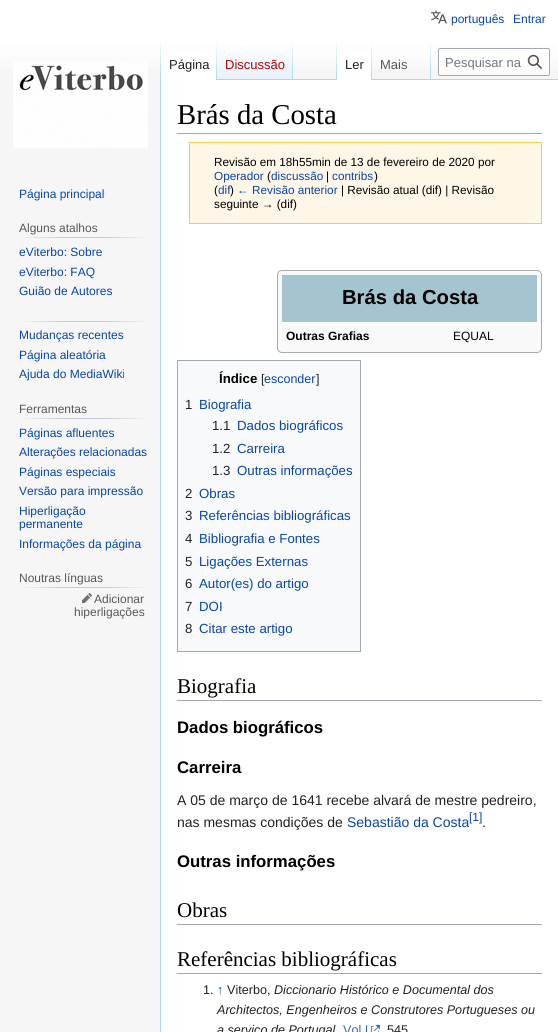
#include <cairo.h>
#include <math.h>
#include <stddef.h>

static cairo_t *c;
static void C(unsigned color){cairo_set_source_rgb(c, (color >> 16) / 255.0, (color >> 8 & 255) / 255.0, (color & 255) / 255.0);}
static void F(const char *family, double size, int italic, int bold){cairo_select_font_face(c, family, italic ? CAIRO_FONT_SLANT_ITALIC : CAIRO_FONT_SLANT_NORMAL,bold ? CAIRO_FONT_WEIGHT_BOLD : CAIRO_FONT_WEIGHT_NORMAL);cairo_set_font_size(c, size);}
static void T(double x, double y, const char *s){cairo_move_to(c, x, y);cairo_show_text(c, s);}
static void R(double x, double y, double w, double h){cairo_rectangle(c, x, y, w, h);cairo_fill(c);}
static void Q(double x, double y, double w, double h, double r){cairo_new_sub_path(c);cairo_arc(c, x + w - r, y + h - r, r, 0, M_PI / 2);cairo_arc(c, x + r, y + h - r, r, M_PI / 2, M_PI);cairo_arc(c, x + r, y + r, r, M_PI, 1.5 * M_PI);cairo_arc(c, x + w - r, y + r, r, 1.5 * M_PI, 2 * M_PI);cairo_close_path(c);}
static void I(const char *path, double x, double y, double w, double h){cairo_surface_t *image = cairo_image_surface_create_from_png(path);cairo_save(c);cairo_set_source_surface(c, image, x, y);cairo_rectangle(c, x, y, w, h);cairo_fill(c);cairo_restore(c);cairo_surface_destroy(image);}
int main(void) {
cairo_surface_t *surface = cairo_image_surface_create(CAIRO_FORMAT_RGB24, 558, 1032);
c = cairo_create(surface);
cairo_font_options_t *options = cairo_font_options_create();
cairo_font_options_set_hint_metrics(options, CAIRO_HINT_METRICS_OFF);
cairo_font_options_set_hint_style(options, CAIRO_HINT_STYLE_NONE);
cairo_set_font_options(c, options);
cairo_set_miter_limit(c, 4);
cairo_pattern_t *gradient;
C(0xf6f6f6);
cairo_paint(c);
gradient = cairo_pattern_create_linear(279,0,279,80);
cairo_pattern_add_color_stop_rgba(gradient,.5,1,1,1,1);
cairo_pattern_add_color_stop_rgba(gradient,1,0.965,0.965,0.965,1);
cairo_set_source(c,gradient);
cairo_pattern_destroy(gradient);
R(0,0,558,69);
I("1.png",431,10,16,14);
F("Liberation Sans",12,0,0);
C(0x0645ad);
T(451,23,"português");
T(513,23,"Entrar");
C(0xa7d7f9);
R(160,79,1,953);
gradient = cairo_pattern_create_linear(161,40,161,80);
cairo_pattern_add_color_stop_rgba(gradient,0,0.655,0.843,0.976,0);
cairo_pattern_add_color_stop_rgba(gradient,1,0.655,0.843,0.976,1);
cairo_set_source(c,gradient);
cairo_pattern_destroy(gradient);
R(160,40,1,40);
C(0xffffff);
R(161,51,55,29);
gradient = cairo_pattern_create_linear(217,40,217,80);
cairo_pattern_add_color_stop_rgba(gradient,0,1,1,1,1);
cairo_pattern_add_color_stop_rgba(gradient,1,0.655,0.843,0.976,1);
cairo_set_source(c,gradient);
cairo_pattern_destroy(gradient);
R(216,40,1,40);
F("Liberation Sans",13,0,0);
C(0x202122);
T(169,69,"Página");
gradient = cairo_pattern_create_linear(255,80,255,40);
cairo_pattern_add_color_stop_rgba(gradient,0,0.467,0.757,0.965,1);
cairo_pattern_add_color_stop_rgba(gradient,.03,0.91,0.949,0.973,1);
cairo_pattern_add_color_stop_rgba(gradient,1,1,1,1,1);
cairo_set_source(c,gradient);
cairo_pattern_destroy(gradient);
R(217,46,76,34);
gradient = cairo_pattern_create_linear(293,40,293,80);
cairo_pattern_add_color_stop_rgba(gradient,0,0.655,0.843,0.976,0);
cairo_pattern_add_color_stop_rgba(gradient,1,0.655,0.843,0.976,1);
cairo_set_source(c,gradient);
cairo_pattern_destroy(gradient);
R(292,40,1,40);
C(0xba0000);
T(225,69,"Discussão");
C(0xa7d7f9);
R(293,79,265,1);
gradient = cairo_pattern_create_linear(337,40,337,80);
cairo_pattern_add_color_stop_rgba(gradient,0,0.655,0.843,0.976,0);
cairo_pattern_add_color_stop_rgba(gradient,1,0.655,0.843,0.976,1);
cairo_set_source(c,gradient);
cairo_pattern_destroy(gradient);
R(336,40,1,40);
C(0xffffff);
R(337,51,34,29);
gradient = cairo_pattern_create_linear(372,40,372,80);
cairo_pattern_add_color_stop_rgba(gradient,0,1,1,1,1);
cairo_pattern_add_color_stop_rgba(gradient,1,0.655,0.843,0.976,1);
cairo_set_source(c,gradient);
cairo_pattern_destroy(gradient);
R(371,40,1,40);
C(0x202122);
T(345,69,"Ler");
gradient = cairo_pattern_create_linear(431,40,431,80);
cairo_pattern_add_color_stop_rgba(gradient,0,0.655,0.843,0.976,0);
cairo_pattern_add_color_stop_rgba(gradient,1,0.655,0.843,0.976,1);
cairo_set_source(c,gradient);
cairo_pattern_destroy(gradient);
R(430,40,1,40);
C(0x54595d);
T(380,69,"Mais");
cairo_set_source_rgba(c,1,1,1,0.5);
Q(438.5,48.5,111,27,1.5);
cairo_fill_preserve(c);
C(0xa2a9b1);
cairo_set_line_width(c,1);
cairo_stroke(c);
C(0x72777d);
T(445,67,"Pesquisar na");
I("2.png",527,54,15,15);
I("3.png",13,61,135,87);
F("Liberation Sans",12,0,0);
C(0x0645ad);
T(19,198,"Página principal");
gradient = cairo_pattern_create_linear(19,238,150,238);
cairo_pattern_add_color_stop_rgba(gradient,0,0.965,0.965,0.965,1);
cairo_pattern_add_color_stop_rgba(gradient,.33,0.784,0.8,0.82,1);
cairo_pattern_add_color_stop_rgba(gradient,.66,0.784,0.8,0.82,1);
cairo_pattern_add_color_stop_rgba(gradient,1,0.965,0.965,0.965,1);
cairo_set_source(c,gradient);
cairo_pattern_destroy(gradient);
R(19,237,131,1);
C(0x54595d);
T(19,232,"Alguns atalhos");
C(0x0645ad);
T(19,256,"eViterbo: Sobre");
T(19,276,"eViterbo: FAQ");
T(19,295,"Guião de Autores");
gradient = cairo_pattern_create_linear(19,322,150,322);
cairo_pattern_add_color_stop_rgba(gradient,0,0.965,0.965,0.965,1);
cairo_pattern_add_color_stop_rgba(gradient,.33,0.784,0.8,0.82,1);
cairo_pattern_add_color_stop_rgba(gradient,.66,0.784,0.8,0.82,1);
cairo_pattern_add_color_stop_rgba(gradient,1,0.965,0.965,0.965,1);
cairo_set_source(c,gradient);
cairo_pattern_destroy(gradient);
R(19,321,131,1);
C(0x0645ad);
T(19,339,"Mudanças recentes");
T(19,359,"Página aleatória");
T(19,378,"Ajuda do MediaWiki");
gradient = cairo_pattern_create_linear(19,419,150,419);
cairo_pattern_add_color_stop_rgba(gradient,0,0.965,0.965,0.965,1);
cairo_pattern_add_color_stop_rgba(gradient,.33,0.784,0.8,0.82,1);
cairo_pattern_add_color_stop_rgba(gradient,.66,0.784,0.8,0.82,1);
cairo_pattern_add_color_stop_rgba(gradient,1,0.965,0.965,0.965,1);
cairo_set_source(c,gradient);
cairo_pattern_destroy(gradient);
R(19,418,131,1);
C(0x54595d);
T(19,413,"Ferramentas");
C(0x0645ad);
T(19,437,"Páginas afluentes");
T(19,456,"Alterações relacionadas");
T(19,476,"Páginas especiais");
T(19,495,"Versão para impressão");
T(19,515,"Hiperligação");
T(19,528,"permanente");
T(19,548,"Informações da página");
gradient = cairo_pattern_create_linear(19,588,150,588);
cairo_pattern_add_color_stop_rgba(gradient,0,0.965,0.965,0.965,1);
cairo_pattern_add_color_stop_rgba(gradient,.33,0.784,0.8,0.82,1);
cairo_pattern_add_color_stop_rgba(gradient,.66,0.784,0.8,0.82,1);
cairo_pattern_add_color_stop_rgba(gradient,1,0.965,0.965,0.965,1);
cairo_set_source(c,gradient);
cairo_pattern_destroy(gradient);
R(19,587,131,1);
C(0x54595d);
T(19,582,"Noutras línguas");
I("4.png",82,593,10,10);
T(94,603,"Adicionar");
T(74,616,"hiperligações");
C(0xffffff);
R(161,80,397,952);
C(0xa2a9b1);
R(177,133,365,1);
F("Liberation Serif",28.75,0,0);
C(0x000000);
T(177,124,"Brás da Costa");
C(0xfef6e7);
cairo_rectangle(c,189.5,142.5,352,81);
cairo_fill_preserve(c);
C(0xffcc33);
cairo_stroke(c);
F("Liberation Sans",11.75,0,0);
C(0x000000);
T(214,166,"Revisão em 18h55min de 13 de fevereiro de 2020 por");
C(0x0645ad);
T(214,180,"Operador");
C(0x000000);
T(267,180,"(");
C(0x0645ad);
T(271,180,"discussão");
C(0x000000);
T(326,180,"|");
C(0x0645ad);
T(332,180,"contribs");
C(0x000000);
T(374,180,")");
T(214,194,"(");
C(0x0645ad);
T(218,194,"dif");
C(0x000000);
T(230,194,")");
C(0x0645ad);
T(237,194,"← Revisão anterior");
C(0x000000);
T(341,194,"| Revisão atual (dif) | Revisão");
T(214,208,"seguinte → (dif)");
C(0xf9f9f9);
Q(277.5,270.5,264,82,4.5);
cairo_fill_preserve(c);
C(0xaaaaaa);
cairo_stroke(c);
C(0xa4c4d0);
R(282,275,255,47);
F("Liberation Sans",20.25,0,1);
C(0x000000);
T(342,304,"Brás da Costa");
F("Liberation Sans",12,0,1);
T(286,340,"Outras Grafias");
F("Liberation Sans",12,0,0);
T(453,340,"EQUAL");
C(0xf8f9fa);
cairo_rectangle(c,177.5,360.5,183,291);
cairo_fill_preserve(c);
C(0xa2a9b1);
cairo_stroke(c);
F("Liberation Sans",13.25,0,1);
C(0x000000);
T(219,383,"Índice");
F("Liberation Sans",12.5,0,0);
C(0x202122);
T(261,383,"[");
C(0x0645ad);
T(264,383,"esconder");
C(0x202122);
T(316,383,"]");
F("Liberation Sans",13.25,0,0);
T(185,409,"1");
C(0x0645ad);
T(199,409,"Biografia");
C(0x202122);
T(212,430,"1.1");
C(0x0645ad);
T(237,430,"Dados biográficos");
C(0x202122);
T(212,453,"1.2");
C(0x0645ad);
T(237,453,"Carreira");
C(0x202122);
T(212,475,"1.3");
C(0x0645ad);
T(237,475,"Outras informações");
C(0x202122);
T(185,498,"2");
C(0x0645ad);
T(199,498,"Obras");
C(0x202122);
T(185,520,"3");
C(0x0645ad);
T(199,520,"Referências bibliográficas");
C(0x202122);
T(185,543,"4");
C(0x0645ad);
T(199,543,"Bibliografia e Fontes");
C(0x202122);
T(185,566,"5");
C(0x0645ad);
T(199,566,"Ligações Externas");
C(0x202122);
T(185,588,"6");
C(0x0645ad);
T(199,588,"Autor(es) do artigo");
C(0x202122);
T(185,611,"7");
C(0x0645ad);
T(199,611,"DOI");
C(0x202122);
T(185,633,"8");
C(0x0645ad);
T(199,633,"Citar este artigo");
C(0xa2a9b1);
R(177,700,365,1);
F("Liberation Serif",21,0,0);
C(0x000000);
T(177,693,"Biografia");
F("Liberation Sans",16.75,0,1);
T(177,733,"Dados biográficos");
T(177,773,"Carreira");
F("Liberation Sans",14,0,0);
C(0x202122);
T(177,805,"A 05 de março de 1641 recebe alvará de mestre pedreiro,");
T(177,827,"nas mesmas condições de");
C(0x0645ad);
T(347,827,"Sebastião da Costa");
F("Liberation Sans",12,0,0);
T(469,821,"[1]");
F("Liberation Sans",14,0,0);
C(0x202122);
T(482,827,".");
F("Liberation Sans",16.75,0,1);
C(0x000000);
T(177,867,"Outras informações");
C(0xa2a9b1);
R(177,924,365,1);
F("Liberation Serif",21,0,0);
C(0x000000);
T(177,917,"Obras");
C(0xa2a9b1);
R(177,973,365,1);
C(0x000000);
T(177,966,"Referências bibliográficas");
F("Liberation Sans",12.6,0,0);
C(0x202122);
T(203,994,"1.");
C(0x0645ad);
T(217,994,"↑");
C(0x202122);
T(227,994,"Viterbo,");
F("Liberation Sans",12.6,1,0);
T(274,994,"Diccionario Histórico e Documental dos");
T(217,1014,"Architectos, Engenheiros e Construtores Portugueses ou");
T(217,1034,"a serviço de Portugal");
F("Liberation Sans",12.6,0,0);
C(0x3366bb);
T(343,1034,"Vol I");
I("5.png",370,1024,10,8);
C(0x202122);
T(387,1034,"545");
cairo_surface_write_to_png(surface, "o.png");
cairo_font_options_destroy(options);
cairo_destroy(c);
cairo_surface_destroy(surface);
return 0;
}
